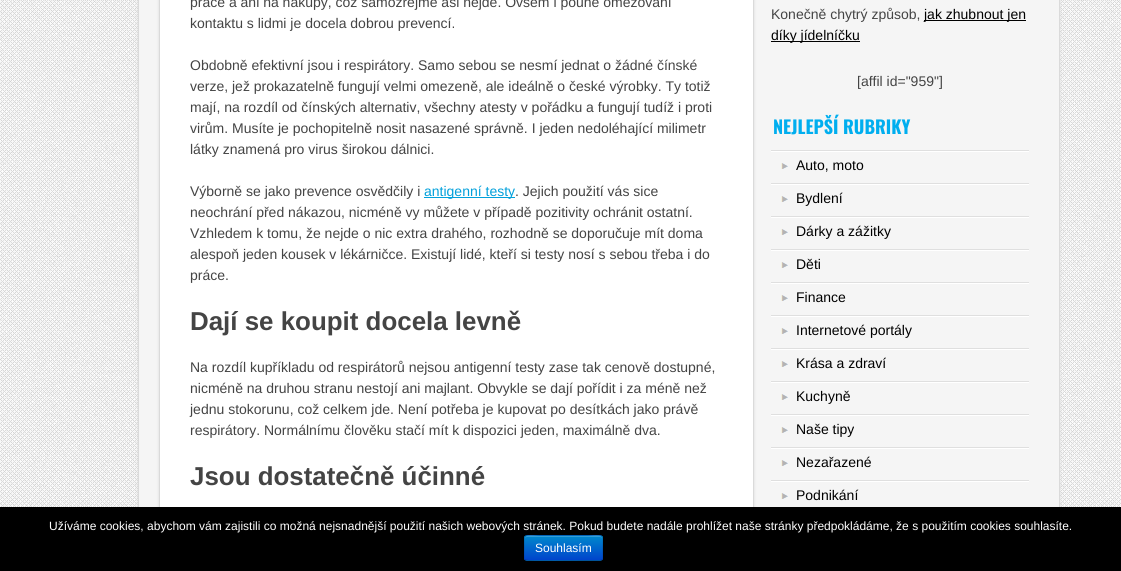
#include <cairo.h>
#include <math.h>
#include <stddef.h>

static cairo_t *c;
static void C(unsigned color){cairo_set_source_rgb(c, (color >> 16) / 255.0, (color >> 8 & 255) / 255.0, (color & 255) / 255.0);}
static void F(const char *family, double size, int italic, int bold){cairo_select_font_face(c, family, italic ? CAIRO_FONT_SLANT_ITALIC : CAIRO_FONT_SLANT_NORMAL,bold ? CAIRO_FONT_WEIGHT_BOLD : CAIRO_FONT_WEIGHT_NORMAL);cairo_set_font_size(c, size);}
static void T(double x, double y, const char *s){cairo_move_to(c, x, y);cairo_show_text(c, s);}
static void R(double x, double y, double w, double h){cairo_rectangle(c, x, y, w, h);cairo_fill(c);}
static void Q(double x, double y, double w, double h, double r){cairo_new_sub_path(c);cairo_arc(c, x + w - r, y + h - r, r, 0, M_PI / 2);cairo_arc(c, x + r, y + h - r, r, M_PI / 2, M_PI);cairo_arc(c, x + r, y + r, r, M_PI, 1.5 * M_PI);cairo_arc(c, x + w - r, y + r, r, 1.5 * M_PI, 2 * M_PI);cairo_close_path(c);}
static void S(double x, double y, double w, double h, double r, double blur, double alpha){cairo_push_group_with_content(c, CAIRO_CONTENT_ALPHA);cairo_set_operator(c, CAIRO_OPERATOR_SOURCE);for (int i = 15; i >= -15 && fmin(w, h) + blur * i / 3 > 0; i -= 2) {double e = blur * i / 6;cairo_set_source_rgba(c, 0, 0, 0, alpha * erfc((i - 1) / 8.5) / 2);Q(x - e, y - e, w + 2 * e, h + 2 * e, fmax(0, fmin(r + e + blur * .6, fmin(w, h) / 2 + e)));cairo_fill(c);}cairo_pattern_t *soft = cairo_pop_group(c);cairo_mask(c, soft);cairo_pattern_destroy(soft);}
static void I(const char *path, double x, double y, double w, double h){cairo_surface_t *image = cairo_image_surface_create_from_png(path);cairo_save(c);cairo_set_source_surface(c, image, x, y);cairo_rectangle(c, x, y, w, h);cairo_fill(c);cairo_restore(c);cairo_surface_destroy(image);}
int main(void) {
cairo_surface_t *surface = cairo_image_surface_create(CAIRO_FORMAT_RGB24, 1121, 571);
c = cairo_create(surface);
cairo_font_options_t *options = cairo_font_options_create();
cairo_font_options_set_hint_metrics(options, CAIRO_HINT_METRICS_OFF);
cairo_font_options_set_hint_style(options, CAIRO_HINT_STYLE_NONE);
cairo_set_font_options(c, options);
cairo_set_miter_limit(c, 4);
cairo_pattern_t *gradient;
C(0xffffff);
cairo_paint(c);
I("1.png",0,0,1121,507);
C(0xdadada);
S(138,-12,922,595,7,1.5,1);
C(0xf5f5f5);
R(139,0,920,507);
cairo_rectangle(c,138.5,-.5,921,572);
C(0xdadada);
cairo_set_line_width(c,1);
cairo_stroke(c);
C(0xdadada);
S(159,-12,595,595,7,1.5,1);
C(0xffffff);
R(160,0,593,507);
cairo_rectangle(c,159.5,-.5,594,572);
C(0xdadada);
cairo_stroke(c);
F("Liberation Sans",14,0,0);
C(0x444444);
T(190,7,"práce a ani na nákupy, což samozřejmě asi nejde. Ovšem i pouhé omezování");
T(190,28,"kontaktu s lidmi je docela dobrou prevencí.");
T(190,70,"Obdobně efektivní jsou i respirátory. Samo sebou se nesmí jednat o žádné čínské");
T(190,91,"verze, jež prokazatelně fungují velmi omezeně, ale ideálně o české výrobky. Ty totiž");
T(190,112,"mají, na rozdíl od čínských alternativ, všechny atesty v pořádku a fungují tudíž i proti");
T(190,133,"virům. Musíte je pochopitelně nosit nasazené správně. I jeden nedoléhající milimetr");
T(190,154,"látky znamená pro virus širokou dálnici.");
T(190,196,"Výborně se jako prevence osvědčily i");
C(0x01a0db);
R(424,197,91,1);
T(424,196,"antigenní testy");
C(0x444444);
T(515,196,". Jejich použití vás sice");
T(190,217,"neochrání před nákazou, nicméně vy můžete v případě pozitivity ochránit ostatní.");
T(190,238,"Vzhledem k tomu, že nejde o nic extra drahého, rozhodně se doporučuje mít doma");
T(190,259,"alespoň jeden kousek v lékárničce. Existují lidé, kteří si testy nosí s sebou třeba i do");
T(190,280,"práce.");
F("Liberation Sans",25.9,0,1);
T(190,330,"Dají se koupit docela levně");
F("Liberation Sans",14,0,0);
T(190,372,"Na rozdíl kupříkladu od respirátorů nejsou antigenní testy zase tak cenově dostupné,");
T(190,393,"nicméně na druhou stranu nestojí ani majlant. Obvykle se dají pořídit i za méně než");
T(190,414,"jednu stokorunu, což celkem jde. Není potřeba je kupovat po desítkách jako právě");
T(190,435,"respirátory. Normálnímu člověku stačí mít k dispozici jeden, maximálně dva.");
F("Liberation Sans",25.9,0,1);
T(190,485,"Jsou dostatečně účinné");
F("Liberation Sans",14,0,0);
T(771,19,"Konečně chytrý způsob,");
C(0x000000);
R(924,20,102,1);
T(924,19,"jak zhubnout jen");
R(771,41,89,1);
T(771,40,"díky jídelníčku");
C(0x444444);
T(857,86,"[affil id=\"959\"]");
F("Oswald",18,0,1);
C(0x00aeef);
T(773,134,"NEJLEPŠÍ RUBRIKY");
I("2.png",771,150,258,2);
I("3.png",781,163,7,6);
F("Liberation Sans",14,0,0);
C(0x000000);
T(796,170,"Auto, moto");
I("2.png",771,183,258,2);
I("3.png",781,196,7,6);
T(796,203,"Bydlení");
I("2.png",771,216,258,2);
I("3.png",781,229,7,6);
T(796,236,"Dárky a zážitky");
I("2.png",771,249,258,2);
I("3.png",781,262,7,6);
T(796,269,"Děti");
I("2.png",771,282,258,2);
I("3.png",781,295,7,6);
T(796,302,"Finance");
I("2.png",771,315,258,2);
I("3.png",781,328,7,6);
T(796,335,"Internetové portály");
I("2.png",771,348,258,2);
I("3.png",781,361,7,6);
T(796,368,"Krása a zdraví");
I("2.png",771,381,258,2);
I("3.png",781,394,7,6);
T(796,401,"Kuchyně");
I("2.png",771,414,258,2);
I("3.png",781,427,7,6);
T(796,434,"Naše tipy");
I("2.png",771,447,258,2);
I("3.png",781,460,7,6);
T(796,467,"Nezařazené");
I("2.png",771,480,258,2);
I("3.png",781,493,7,6);
T(796,500,"Podnikání");
R(0,507,1121,64);
F("Liberation Sans",12,0,0);
C(0xffffff);
T(49,530,"Užíváme cookies, abychom vám zajistili co možná nejsnadnější použití našich webových stránek. Pokud budete nadále prohlížet naše stránky předpokládáme, že s použitím cookies souhlasíte.");
C(0x006dcc);
Q(524,535,79,26,3);
cairo_fill(c);
cairo_save(c);
Q(524,535,79,26,3);
cairo_clip(c);
gradient = cairo_pattern_create_linear(564,536,564,560);
cairo_pattern_add_color_stop_rgba(gradient,0,0,0.533,0.8,1);
cairo_pattern_add_color_stop_rgba(gradient,1,0,0.267,0.8,1);
cairo_set_source(c,gradient);
cairo_pattern_destroy(gradient);
R(524,536,79,24);
cairo_restore(c);
cairo_set_source_rgba(c,1,1,1,0.2);
cairo_new_path(c);
cairo_move_to(c,527,537);
cairo_line_to(c,600,537);
cairo_curve_to(c,601,537,602,538,602,539);
cairo_curve_to(c,602,533,591,536,588,536);
cairo_line_to(c,539,536);
cairo_curve_to(c,536,536,525,533,525,539);
cairo_curve_to(c,525,538,526,537,527,537);
cairo_close_path(c);
cairo_fill(c);
cairo_new_path(c);
cairo_move_to(c,602,560);
cairo_line_to(c,600,560.5);
cairo_line_to(c,588,560.5);
cairo_curve_to(c,581,560.5,527.5,561.5,525.5,560);
cairo_line_to(c,525,560);
cairo_set_source_rgba(c,0,0,0,0.25);
cairo_stroke(c);
cairo_new_path(c);
cairo_move_to(c,525,560);
cairo_curve_to(c,523.5,558,524.5,550.5,524.5,548);
cairo_curve_to(c,524.5,532.5,522.5,535.5,539,535.5);
cairo_line_to(c,588,535.5);
cairo_curve_to(c,606,535.5,602.5,533,602.5,551.5);
cairo_curve_to(c,602.5,553.5,603.5,558,602,560);
cairo_set_source_rgba(c,0,0,0,0.1);
cairo_stroke(c);
C(0xffffff);
T(535,552,"Souhlasím");
cairo_surface_write_to_png(surface, "o.png");
cairo_font_options_destroy(options);
cairo_destroy(c);
cairo_surface_destroy(surface);
return 0;
}
